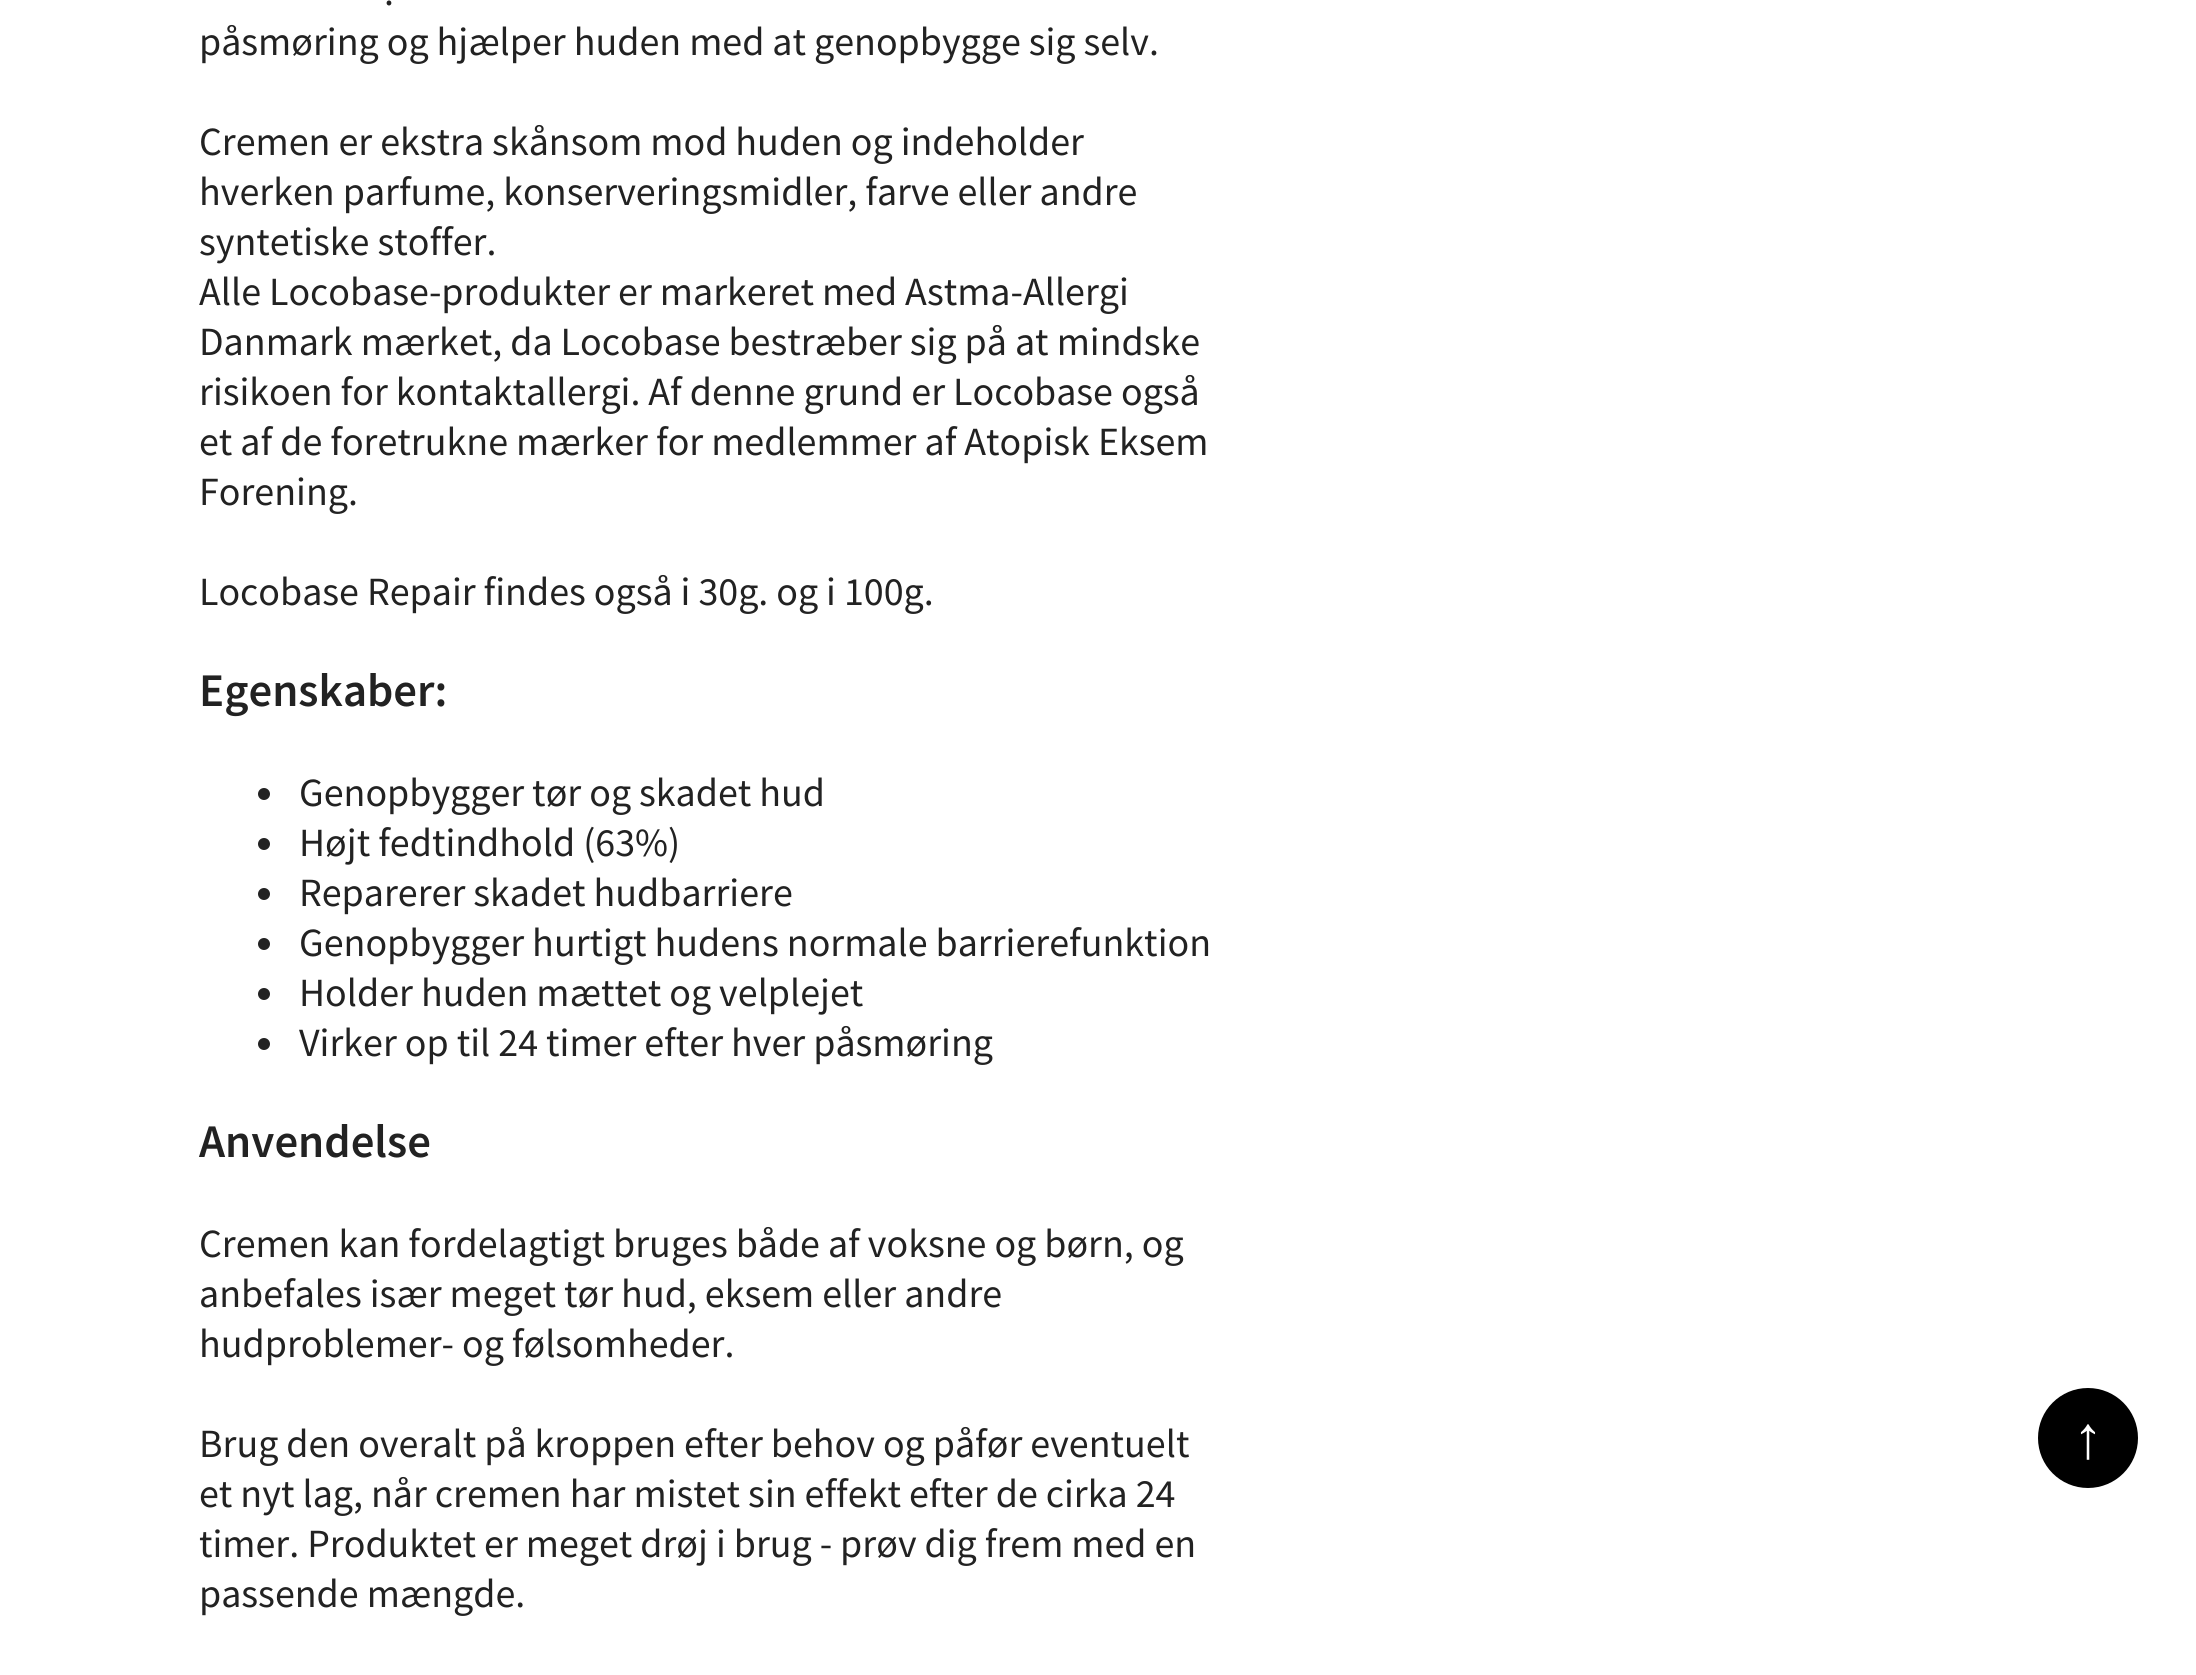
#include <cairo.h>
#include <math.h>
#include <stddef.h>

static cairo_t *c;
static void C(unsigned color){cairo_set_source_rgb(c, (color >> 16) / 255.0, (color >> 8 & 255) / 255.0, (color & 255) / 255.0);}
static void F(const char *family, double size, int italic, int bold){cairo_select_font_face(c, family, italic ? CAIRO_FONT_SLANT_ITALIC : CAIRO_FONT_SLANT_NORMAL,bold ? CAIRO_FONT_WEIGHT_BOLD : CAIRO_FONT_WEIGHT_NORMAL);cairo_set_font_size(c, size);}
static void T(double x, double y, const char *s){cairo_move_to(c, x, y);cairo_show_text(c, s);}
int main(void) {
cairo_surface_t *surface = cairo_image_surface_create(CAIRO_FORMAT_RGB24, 2196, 1675);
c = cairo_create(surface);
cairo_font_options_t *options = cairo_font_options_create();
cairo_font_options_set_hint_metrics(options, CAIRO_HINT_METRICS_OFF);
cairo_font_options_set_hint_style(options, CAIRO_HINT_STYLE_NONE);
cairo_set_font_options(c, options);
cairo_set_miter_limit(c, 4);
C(0xffffff);
cairo_paint(c);
F("Source Sans Pro",40,0,0);
C(0x222222);
T(384,5,".");
T(199,55,"påsmøring og hjælper huden med at genopbygge sig selv.");
T(199,155,"Cremen er ekstra skånsom mod huden og indeholder");
T(199,205,"hverken parfume, konserveringsmidler, farve eller andre");
T(199,255,"syntetiske stoffer.");
T(199,305,"Alle Locobase-produkter er markeret med Astma-Allergi");
T(199,355,"Danmark mærket, da Locobase bestræber sig på at mindske");
T(199,405,"risikoen for kontaktallergi. Af denne grund er Locobase også");
T(199,455,"et af de foretrukne mærker for medlemmer af Atopisk Eksem");
T(199,505,"Forening.");
T(199,605,"Locobase Repair findes også i 30g. og i 100g.");
F("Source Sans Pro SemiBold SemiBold",46.75,0,0);
T(199,706,"Egenskaber:");
cairo_new_path(c);
cairo_arc(c,264,794,6,0,2 * M_PI);
cairo_fill(c);
F("Source Sans Pro",40,0,0);
T(299,806,"Genopbygger tør og skadet hud");
cairo_new_path(c);
cairo_arc(c,264,844,6,0,2 * M_PI);
cairo_fill(c);
T(299,856,"Højt fedtindhold (63%)");
cairo_new_path(c);
cairo_arc(c,264,894,6,0,2 * M_PI);
cairo_fill(c);
T(299,906,"Reparerer skadet hudbarriere");
cairo_new_path(c);
cairo_arc(c,264,944,6,0,2 * M_PI);
cairo_fill(c);
T(299,956,"Genopbygger hurtigt hudens normale barrierefunktion");
cairo_new_path(c);
cairo_arc(c,264,994,6,0,2 * M_PI);
cairo_fill(c);
T(299,1006,"Holder huden mættet og velplejet");
cairo_new_path(c);
cairo_arc(c,264,1044,6,0,2 * M_PI);
cairo_fill(c);
T(299,1056,"Virker op til 24 timer efter hver påsmøring");
F("Source Sans Pro SemiBold SemiBold",46.75,0,0);
T(199,1157,"Anvendelse");
F("Source Sans Pro",40,0,0);
T(199,1257,"Cremen kan fordelagtigt bruges både af voksne og børn, og");
T(199,1307,"anbefales især meget tør hud, eksem eller andre");
T(199,1357,"hudproblemer- og følsomheder.");
T(199,1457,"Brug den overalt på kroppen efter behov og påfør eventuelt");
T(199,1507,"et nyt lag, når cremen har mistet sin effekt efter de cirka 24");
T(199,1557,"timer. Produktet er meget drøj i brug - prøv dig frem med en");
T(199,1607,"passende mængde.");
C(0x000000);
cairo_new_path(c);
cairo_arc(c,2088,1438,50,0,2 * M_PI);
cairo_fill(c);
F("Liberation Sans",60,0,0);
C(0xffffff);
T(2073,1458,"↑");
cairo_surface_write_to_png(surface, "o.png");
cairo_font_options_destroy(options);
cairo_destroy(c);
cairo_surface_destroy(surface);
return 0;
}
